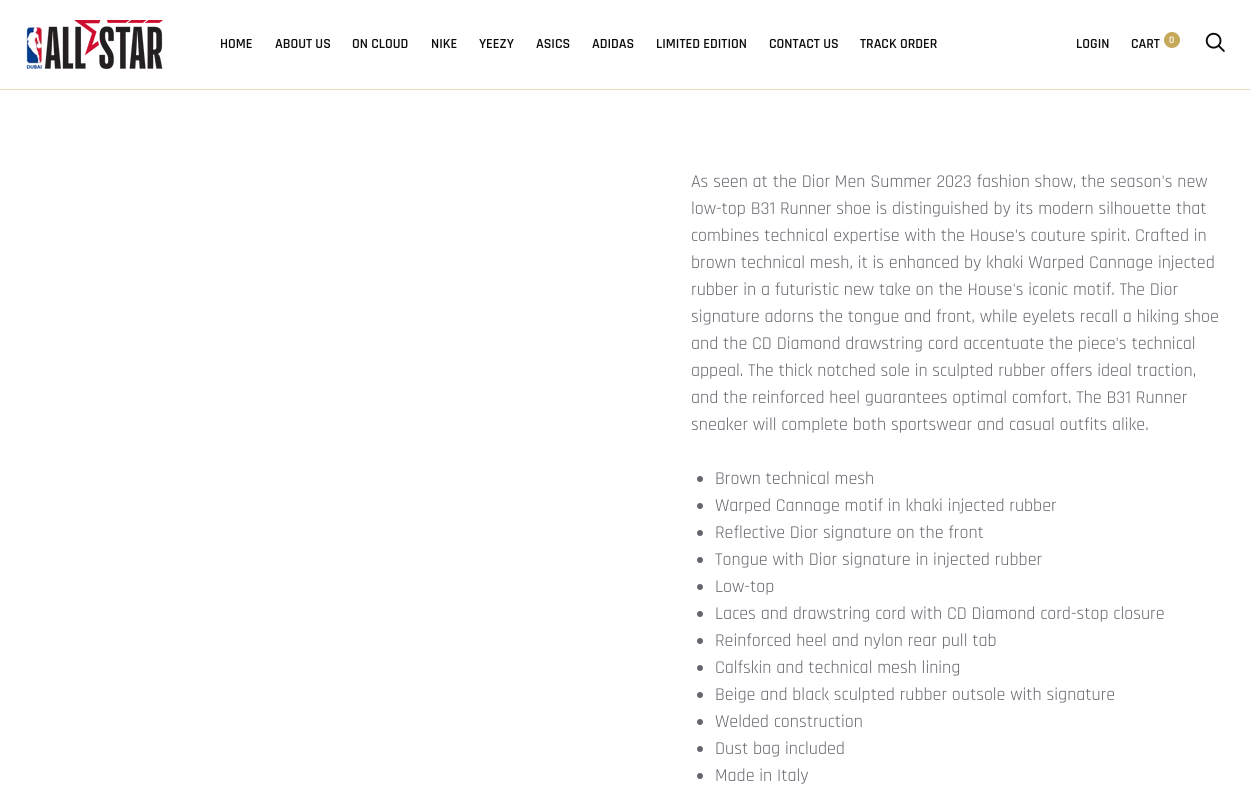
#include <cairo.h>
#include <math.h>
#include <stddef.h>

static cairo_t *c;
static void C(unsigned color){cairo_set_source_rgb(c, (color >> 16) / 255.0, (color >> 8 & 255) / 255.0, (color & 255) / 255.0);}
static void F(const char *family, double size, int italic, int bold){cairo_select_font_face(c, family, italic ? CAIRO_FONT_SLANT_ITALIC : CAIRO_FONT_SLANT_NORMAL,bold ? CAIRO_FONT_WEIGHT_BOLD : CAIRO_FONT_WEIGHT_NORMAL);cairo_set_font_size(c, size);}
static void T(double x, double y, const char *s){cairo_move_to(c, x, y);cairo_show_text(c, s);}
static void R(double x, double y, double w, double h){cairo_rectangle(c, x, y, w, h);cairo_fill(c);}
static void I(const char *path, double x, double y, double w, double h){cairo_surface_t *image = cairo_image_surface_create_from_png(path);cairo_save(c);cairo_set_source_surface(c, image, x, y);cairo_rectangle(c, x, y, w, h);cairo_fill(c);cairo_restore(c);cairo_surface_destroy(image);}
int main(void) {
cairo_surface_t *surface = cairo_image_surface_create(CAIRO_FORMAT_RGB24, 1250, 798);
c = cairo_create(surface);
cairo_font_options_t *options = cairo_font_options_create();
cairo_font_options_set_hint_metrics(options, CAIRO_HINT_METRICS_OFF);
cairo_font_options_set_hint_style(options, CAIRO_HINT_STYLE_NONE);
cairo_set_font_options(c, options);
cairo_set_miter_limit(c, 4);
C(0xffffff);
cairo_paint(c);
C(0xe8dcbd);
R(0,89,1250,1);
I("1.png",26,20,137,49);
F("Rajdhani SemiBold",14,0,0);
C(0x0c0c0d);
T(220,48,"HOME");
T(275,48,"ABOUT US");
T(352,48,"ON CLOUD");
T(431,48,"NIKE");
T(479,48,"YEEZY");
T(536,48,"ASICS");
T(592,48,"ADIDAS");
T(656,48,"LIMITED EDITION");
T(769,48,"CONTACT US");
T(860,48,"TRACK ORDER");
T(1076,48,"LOGIN");
T(1131,48,"CART");
C(0xc6a85b);
cairo_new_path(c);
cairo_arc(c,1172,40,8,0,2 * M_PI);
cairo_fill(c);
F("Rajdhani SemiBold",10,0,0);
C(0xffffff);
T(1169,43,"0");
I("2.png",1205,32,20,20);
F("Rajdhani",18,0,0);
C(0x66656e);
T(691,187,"As seen at the Dior Men Summer 2023 fashion show, the season's new");
T(691,214,"low-top B31 Runner shoe is distinguished by its modern silhouette that");
T(691,241,"combines technical expertise with the House's couture spirit. Crafted in");
T(691,268,"brown technical mesh, it is enhanced by khaki Warped Cannage injected");
T(691,295,"rubber in a futuristic new take on the House's iconic motif. The Dior");
T(691,322,"signature adorns the tongue and front, while eyelets recall a hiking shoe");
T(691,349,"and the CD Diamond drawstring cord accentuate the piece's technical");
T(691,376,"appeal. The thick notched sole in sculpted rubber offers ideal traction,");
T(691,403,"and the reinforced heel guarantees optimal comfort. The B31 Runner");
T(691,430,"sneaker will complete both sportswear and casual outfits alike.");
cairo_new_path(c);
cairo_arc(c,700,479,3,0,2 * M_PI);
cairo_fill(c);
T(715,484,"Brown technical mesh");
cairo_new_path(c);
cairo_arc(c,700,506,3,0,2 * M_PI);
cairo_fill(c);
T(715,511,"Warped Cannage motif in khaki injected rubber");
cairo_new_path(c);
cairo_arc(c,700,533,3,0,2 * M_PI);
cairo_fill(c);
T(715,538,"Reflective Dior signature on the front");
cairo_new_path(c);
cairo_arc(c,700,560,3,0,2 * M_PI);
cairo_fill(c);
T(715,565,"Tongue with Dior signature in injected rubber");
cairo_new_path(c);
cairo_arc(c,700,587,3,0,2 * M_PI);
cairo_fill(c);
T(715,592,"Low-top");
cairo_new_path(c);
cairo_arc(c,700,614,3,0,2 * M_PI);
cairo_fill(c);
T(715,619,"Laces and drawstring cord with CD Diamond cord-stop closure");
cairo_new_path(c);
cairo_arc(c,700,641,3,0,2 * M_PI);
cairo_fill(c);
T(715,646,"Reinforced heel and nylon rear pull tab");
cairo_new_path(c);
cairo_arc(c,700,668,3,0,2 * M_PI);
cairo_fill(c);
T(715,673,"Calfskin and technical mesh lining");
cairo_new_path(c);
cairo_arc(c,700,695,3,0,2 * M_PI);
cairo_fill(c);
T(715,700,"Beige and black sculpted rubber outsole with signature");
cairo_new_path(c);
cairo_arc(c,700,722,3,0,2 * M_PI);
cairo_fill(c);
T(715,727,"Welded construction");
cairo_new_path(c);
cairo_arc(c,700,749,3,0,2 * M_PI);
cairo_fill(c);
T(715,754,"Dust bag included");
cairo_new_path(c);
cairo_arc(c,700,776,3,0,2 * M_PI);
cairo_fill(c);
T(715,781,"Made in Italy");
cairo_surface_write_to_png(surface, "o.png");
cairo_font_options_destroy(options);
cairo_destroy(c);
cairo_surface_destroy(surface);
return 0;
}
